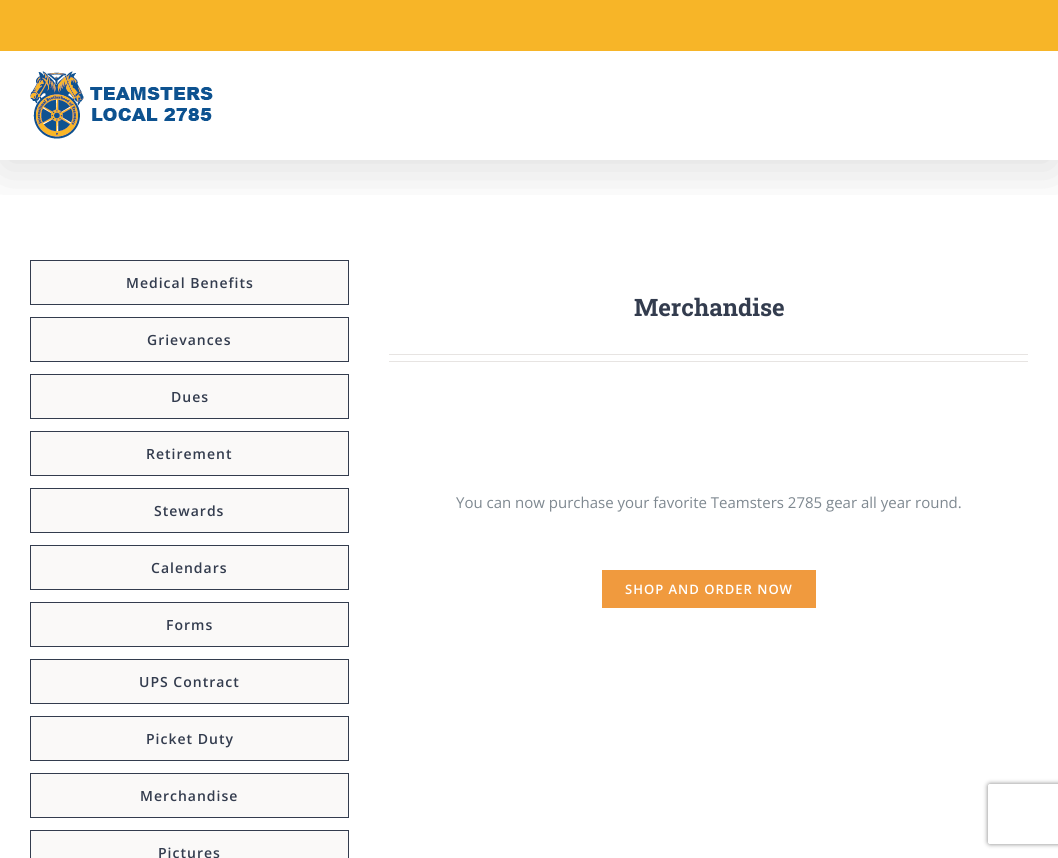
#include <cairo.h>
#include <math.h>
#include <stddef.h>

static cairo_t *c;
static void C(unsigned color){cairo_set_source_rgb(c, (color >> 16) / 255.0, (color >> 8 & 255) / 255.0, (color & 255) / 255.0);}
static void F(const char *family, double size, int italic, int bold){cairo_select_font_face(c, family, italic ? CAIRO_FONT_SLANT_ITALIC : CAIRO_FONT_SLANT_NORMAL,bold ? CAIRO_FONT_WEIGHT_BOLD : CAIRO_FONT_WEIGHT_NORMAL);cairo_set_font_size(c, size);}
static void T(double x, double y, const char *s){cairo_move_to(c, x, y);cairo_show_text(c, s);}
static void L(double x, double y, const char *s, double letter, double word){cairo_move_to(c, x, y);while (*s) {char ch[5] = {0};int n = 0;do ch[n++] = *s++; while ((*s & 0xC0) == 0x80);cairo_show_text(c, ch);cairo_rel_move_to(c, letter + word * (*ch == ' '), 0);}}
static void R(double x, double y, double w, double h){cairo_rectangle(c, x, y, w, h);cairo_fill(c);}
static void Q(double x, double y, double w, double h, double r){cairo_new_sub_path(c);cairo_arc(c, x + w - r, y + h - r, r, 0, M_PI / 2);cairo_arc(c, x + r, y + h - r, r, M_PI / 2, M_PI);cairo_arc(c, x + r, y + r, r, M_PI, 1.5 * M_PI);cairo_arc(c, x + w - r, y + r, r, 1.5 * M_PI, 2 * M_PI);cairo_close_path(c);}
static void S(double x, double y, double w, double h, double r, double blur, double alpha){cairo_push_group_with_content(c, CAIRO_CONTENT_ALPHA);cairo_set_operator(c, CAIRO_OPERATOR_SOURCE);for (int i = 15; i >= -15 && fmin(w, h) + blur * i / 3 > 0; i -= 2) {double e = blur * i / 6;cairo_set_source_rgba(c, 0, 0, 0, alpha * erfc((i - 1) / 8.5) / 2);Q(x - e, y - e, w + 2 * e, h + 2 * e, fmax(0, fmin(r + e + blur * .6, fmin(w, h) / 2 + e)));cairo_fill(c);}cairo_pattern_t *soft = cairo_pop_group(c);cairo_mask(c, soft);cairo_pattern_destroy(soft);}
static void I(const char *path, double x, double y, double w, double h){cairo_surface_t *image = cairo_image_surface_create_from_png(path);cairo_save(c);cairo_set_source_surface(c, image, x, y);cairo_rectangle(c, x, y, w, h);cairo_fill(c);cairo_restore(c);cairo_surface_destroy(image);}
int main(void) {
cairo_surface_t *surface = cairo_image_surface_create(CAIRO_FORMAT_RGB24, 1058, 858);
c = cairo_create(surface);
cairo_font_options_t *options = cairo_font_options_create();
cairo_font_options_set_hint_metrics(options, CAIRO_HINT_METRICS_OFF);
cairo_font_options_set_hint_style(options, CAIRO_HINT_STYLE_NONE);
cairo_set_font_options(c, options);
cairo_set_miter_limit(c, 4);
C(0xffffff);
cairo_paint(c);
cairo_save(c);
cairo_rectangle(c,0,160,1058,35);
cairo_clip(c);
C(0x000000);
S(2,12,1054,156,0,25,.14);
cairo_restore(c);
C(0xf7b528);
R(0,0,1058,51);
I("1.png",30,71,183,68);
C(0xfaf9f8);
cairo_rectangle(c,30.5,260.5,318,44);
cairo_fill_preserve(c);
C(0x333c4e);
cairo_set_line_width(c,1);
cairo_stroke(c);
F("Open Sans SemiBold",14,0,0);
L(126,288,"Medical Benefits",1,0);
C(0xfaf9f8);
cairo_rectangle(c,30.5,317.5,318,44);
cairo_fill_preserve(c);
C(0x333c4e);
cairo_stroke(c);
L(147,345,"Grievances",1,0);
C(0xfaf9f8);
cairo_rectangle(c,30.5,374.5,318,44);
cairo_fill_preserve(c);
C(0x333c4e);
cairo_stroke(c);
L(171,402,"Dues",1,0);
C(0xfaf9f8);
cairo_rectangle(c,30.5,431.5,318,44);
cairo_fill_preserve(c);
C(0x333c4e);
cairo_stroke(c);
L(146,459,"Retirement",1,0);
C(0xfaf9f8);
cairo_rectangle(c,30.5,488.5,318,44);
cairo_fill_preserve(c);
C(0x333c4e);
cairo_stroke(c);
L(154,516,"Stewards",1,0);
C(0xfaf9f8);
cairo_rectangle(c,30.5,545.5,318,44);
cairo_fill_preserve(c);
C(0x333c4e);
cairo_stroke(c);
L(151,573,"Calendars",1,0);
C(0xfaf9f8);
cairo_rectangle(c,30.5,602.5,318,44);
cairo_fill_preserve(c);
C(0x333c4e);
cairo_stroke(c);
L(166,630,"Forms",1,0);
C(0xfaf9f8);
cairo_rectangle(c,30.5,659.5,318,44);
cairo_fill_preserve(c);
C(0x333c4e);
cairo_stroke(c);
L(139,687,"UPS Contract",1,0);
C(0xfaf9f8);
cairo_rectangle(c,30.5,716.5,318,44);
cairo_fill_preserve(c);
C(0x333c4e);
cairo_stroke(c);
L(146,744,"Picket Duty",1,0);
C(0xfaf9f8);
cairo_rectangle(c,30.5,773.5,318,44);
cairo_fill_preserve(c);
C(0x333c4e);
cairo_stroke(c);
L(140,801,"Merchandise",1,0);
C(0xfaf9f8);
cairo_rectangle(c,30.5,830.5,318,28);
cairo_fill_preserve(c);
C(0x333c4e);
cairo_stroke(c);
L(158,858,"Pictures",1,0);
F("Roboto Slab",24,0,1);
T(634,316,"Merchandise");
C(0xe7e4e2);
R(389,354,639,1);
R(389,361,639,1);
F("Open Sans",15,0,0);
C(0x7e8890);
T(456,508,"You can now purchase your favorite Teamsters 2785 gear all year round.");
C(0xf09a3e);
R(602,570,214,38);
F("Open Sans SemiBold",13,0,0);
C(0xffffff);
L(625,594,"SHOP AND ORDER NOW",1,0);
cairo_save(c);
cairo_set_fill_rule(c,CAIRO_FILL_RULE_EVEN_ODD);
cairo_new_path(c);
cairo_move_to(c,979,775);
cairo_line_to(c,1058,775);
cairo_line_to(c,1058,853);
cairo_line_to(c,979,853);
cairo_close_path(c);
cairo_move_to(c,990,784);
cairo_line_to(c,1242,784);
cairo_curve_to(c,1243,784,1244,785,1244,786);
cairo_line_to(c,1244,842);
cairo_curve_to(c,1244,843,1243,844,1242,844);
cairo_line_to(c,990,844);
cairo_curve_to(c,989,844,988,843,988,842);
cairo_line_to(c,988,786);
cairo_curve_to(c,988,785,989,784,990,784);
cairo_close_path(c);
cairo_clip(c);
C(0x808080);
S(988,784,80,60,2,2.5,1);
cairo_restore(c);
cairo_surface_write_to_png(surface, "o.png");
cairo_font_options_destroy(options);
cairo_destroy(c);
cairo_surface_destroy(surface);
return 0;
}
